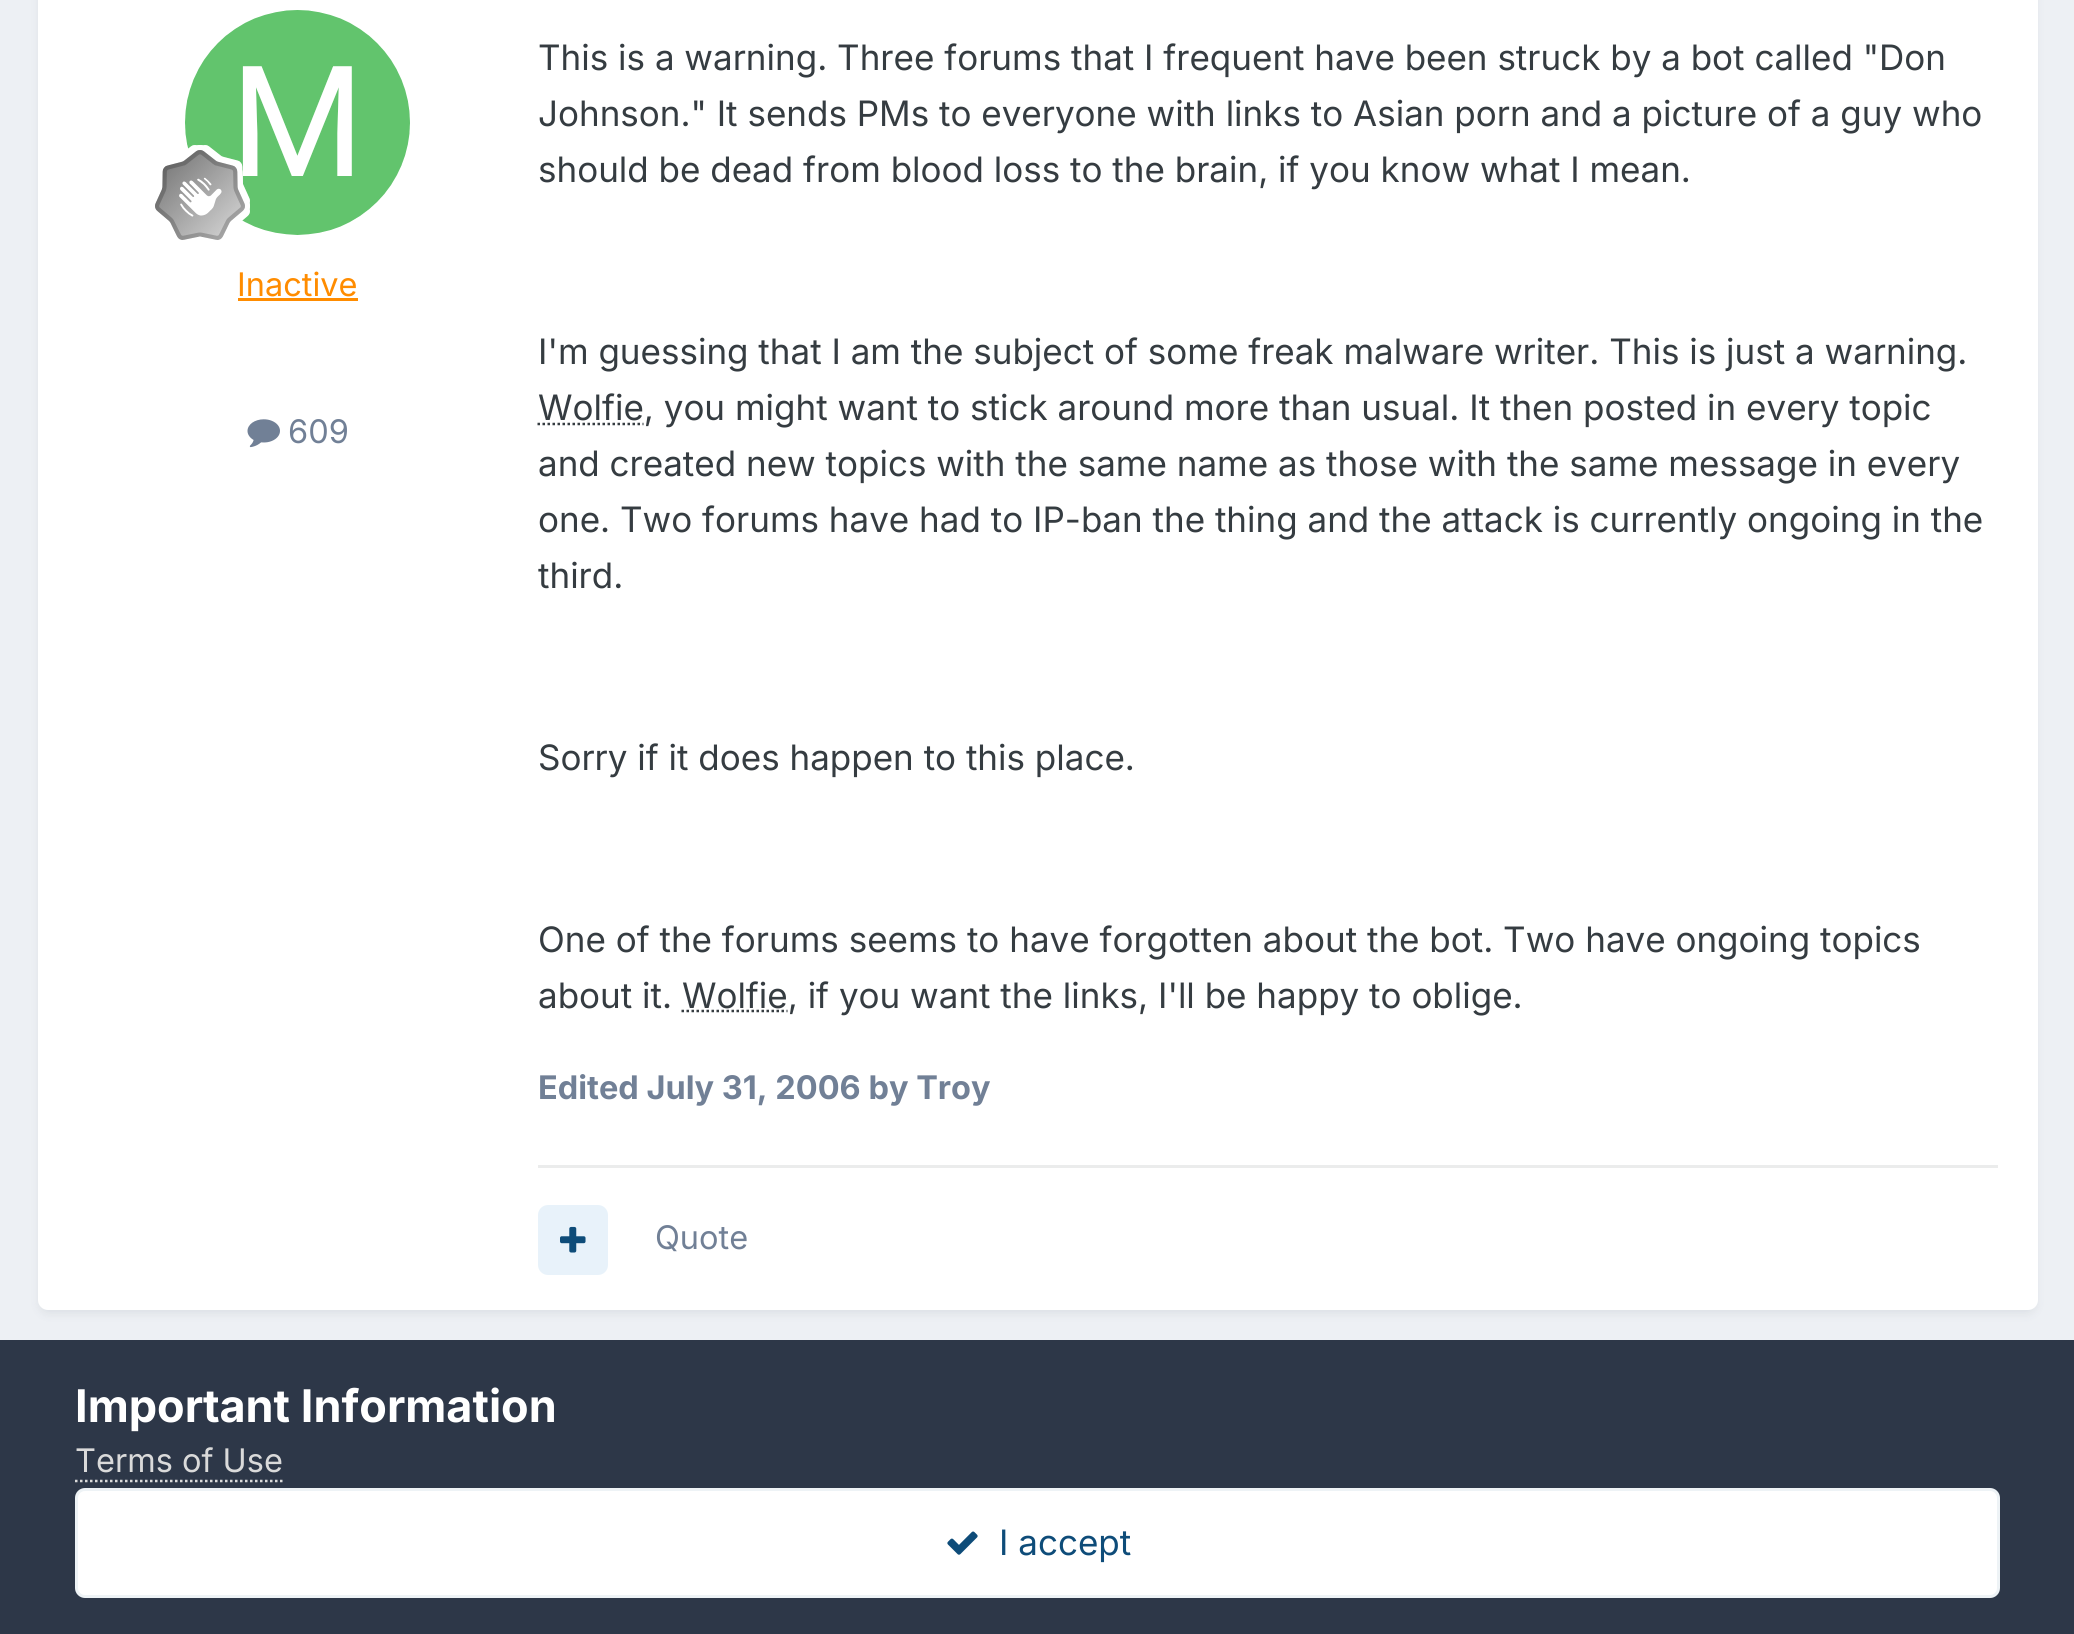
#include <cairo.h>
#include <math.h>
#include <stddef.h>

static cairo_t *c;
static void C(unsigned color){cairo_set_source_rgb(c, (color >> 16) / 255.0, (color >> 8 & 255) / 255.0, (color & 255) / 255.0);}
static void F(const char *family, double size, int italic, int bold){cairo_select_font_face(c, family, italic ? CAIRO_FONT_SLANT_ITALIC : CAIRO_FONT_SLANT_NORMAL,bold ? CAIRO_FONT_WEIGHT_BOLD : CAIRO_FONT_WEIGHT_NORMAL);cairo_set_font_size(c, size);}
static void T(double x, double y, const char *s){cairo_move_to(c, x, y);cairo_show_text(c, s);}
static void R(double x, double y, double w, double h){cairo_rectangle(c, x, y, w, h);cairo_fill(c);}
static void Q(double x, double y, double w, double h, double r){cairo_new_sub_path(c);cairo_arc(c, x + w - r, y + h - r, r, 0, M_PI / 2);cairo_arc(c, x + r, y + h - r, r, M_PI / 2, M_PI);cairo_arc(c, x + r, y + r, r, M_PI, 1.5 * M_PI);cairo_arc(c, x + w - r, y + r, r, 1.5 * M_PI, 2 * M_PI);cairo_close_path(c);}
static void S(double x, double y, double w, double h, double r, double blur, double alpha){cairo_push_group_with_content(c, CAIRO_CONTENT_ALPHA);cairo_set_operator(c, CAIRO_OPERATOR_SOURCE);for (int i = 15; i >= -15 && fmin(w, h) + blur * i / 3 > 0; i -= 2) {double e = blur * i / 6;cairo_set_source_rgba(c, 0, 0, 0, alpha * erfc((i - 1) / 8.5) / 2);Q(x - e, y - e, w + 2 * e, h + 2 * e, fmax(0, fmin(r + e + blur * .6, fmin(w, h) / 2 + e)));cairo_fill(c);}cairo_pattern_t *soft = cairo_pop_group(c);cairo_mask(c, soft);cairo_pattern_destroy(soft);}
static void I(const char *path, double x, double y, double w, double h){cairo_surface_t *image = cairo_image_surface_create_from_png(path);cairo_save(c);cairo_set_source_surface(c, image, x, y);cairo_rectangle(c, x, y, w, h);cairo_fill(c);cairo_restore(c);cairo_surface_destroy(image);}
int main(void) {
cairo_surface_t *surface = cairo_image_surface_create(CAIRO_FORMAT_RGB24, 2074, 1634);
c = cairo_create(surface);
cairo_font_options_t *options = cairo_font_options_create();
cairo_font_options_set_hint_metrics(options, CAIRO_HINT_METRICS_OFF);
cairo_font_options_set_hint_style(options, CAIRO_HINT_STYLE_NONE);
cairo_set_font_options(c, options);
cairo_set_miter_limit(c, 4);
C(0xedf0f4);
cairo_paint(c);
C(0x2d3748);
S(40,-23,1995,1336,8,5,.1);
C(0xffffff);
Q(38,-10,2000,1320,10);
cairo_fill(c);
I("1.png",185,10,225,225);
I("2.png",155,145,95,95);
F("Inter",32.5,0,0);
C(0xff8c00);
T(237,296,"Inactive");
R(238,298,120,3);
I("3.png",247,419,33,29);
C(0x718096);
T(288,443,"609");
F("Inter",35,0,0);
C(0x353c41);
T(538,70,"This is a warning. Three forums that I frequent have been struck by a bot called \"Don");
T(538,126,"Johnson.\" It sends PMs to everyone with links to Asian porn and a picture of a guy who");
T(538,182,"should be dead from blood loss to the brain, if you know what I mean.");
T(538,364,"I'm guessing that I am the subject of some freak malware writer. This is just a warning.");
cairo_new_path(c);
cairo_move_to(c,537.5,424);
cairo_line_to(c,643.5,424);
cairo_set_line_width(c,2.5);
cairo_set_dash(c,(double[]){2.5,2.5},2,0);
cairo_stroke(c);
T(538,420,"Wolfie, you might want to stick around more than usual. It then posted in every topic");
T(538,476,"and created new topics with the same name as those with the same message in every");
T(538,532,"one. Two forums have had to IP-ban the thing and the attack is currently ongoing in the");
T(538,588,"third.");
T(538,770,"Sorry if it does happen to this place.");
T(538,952,"One of the forums seems to have forgotten about the bot. Two have ongoing topics");
T(538,1008,"about it. Wolfie, if you want the links, I'll be happy to oblige.");
cairo_new_path(c);
cairo_move_to(c,681.5,1011);
cairo_line_to(c,787.5,1011);
cairo_stroke(c);
F("Inter",32.5,0,1);
C(0x718096);
T(538,1099,"Edited July 31, 2006 by Troy");
C(0xebecec);
R(538,1165,1460,3);
C(0xe8f2fa);
Q(538,1205,70,70,10);
cairo_fill(c);
I("4.png",560,1226,26,27);
F("Inter",32.5,0,0);
C(0x718096);
T(655,1249,"Quote");
C(0x2d3748);
R(0,1340,2074,294);
F("Inter",45,0,1);
C(0xffffff);
T(75,1422,"Important Information");
F("Inter",32.5,0,0);
C(0xdadada);
T(75,1472,"Terms of Use");
cairo_new_path(c);
cairo_move_to(c,75,1481);
cairo_line_to(c,282.5,1481);
cairo_stroke(c);
C(0xffffff);
Q(75,1488,1925,110,10);
cairo_fill(c);
Q(76.5,1489.5,1922,107,8.5);
cairo_set_source_rgba(c,0.055,0.298,0.475,0.07);
cairo_set_line_width(c,3);
cairo_set_dash(c,NULL,0,0);
cairo_stroke(c);
I("5.png",947,1531,31,24);
F("Inter",35,0,0);
C(0x0e4c79);
T(999,1555,"I accept");
cairo_surface_write_to_png(surface, "o.png");
cairo_font_options_destroy(options);
cairo_destroy(c);
cairo_surface_destroy(surface);
return 0;
}
